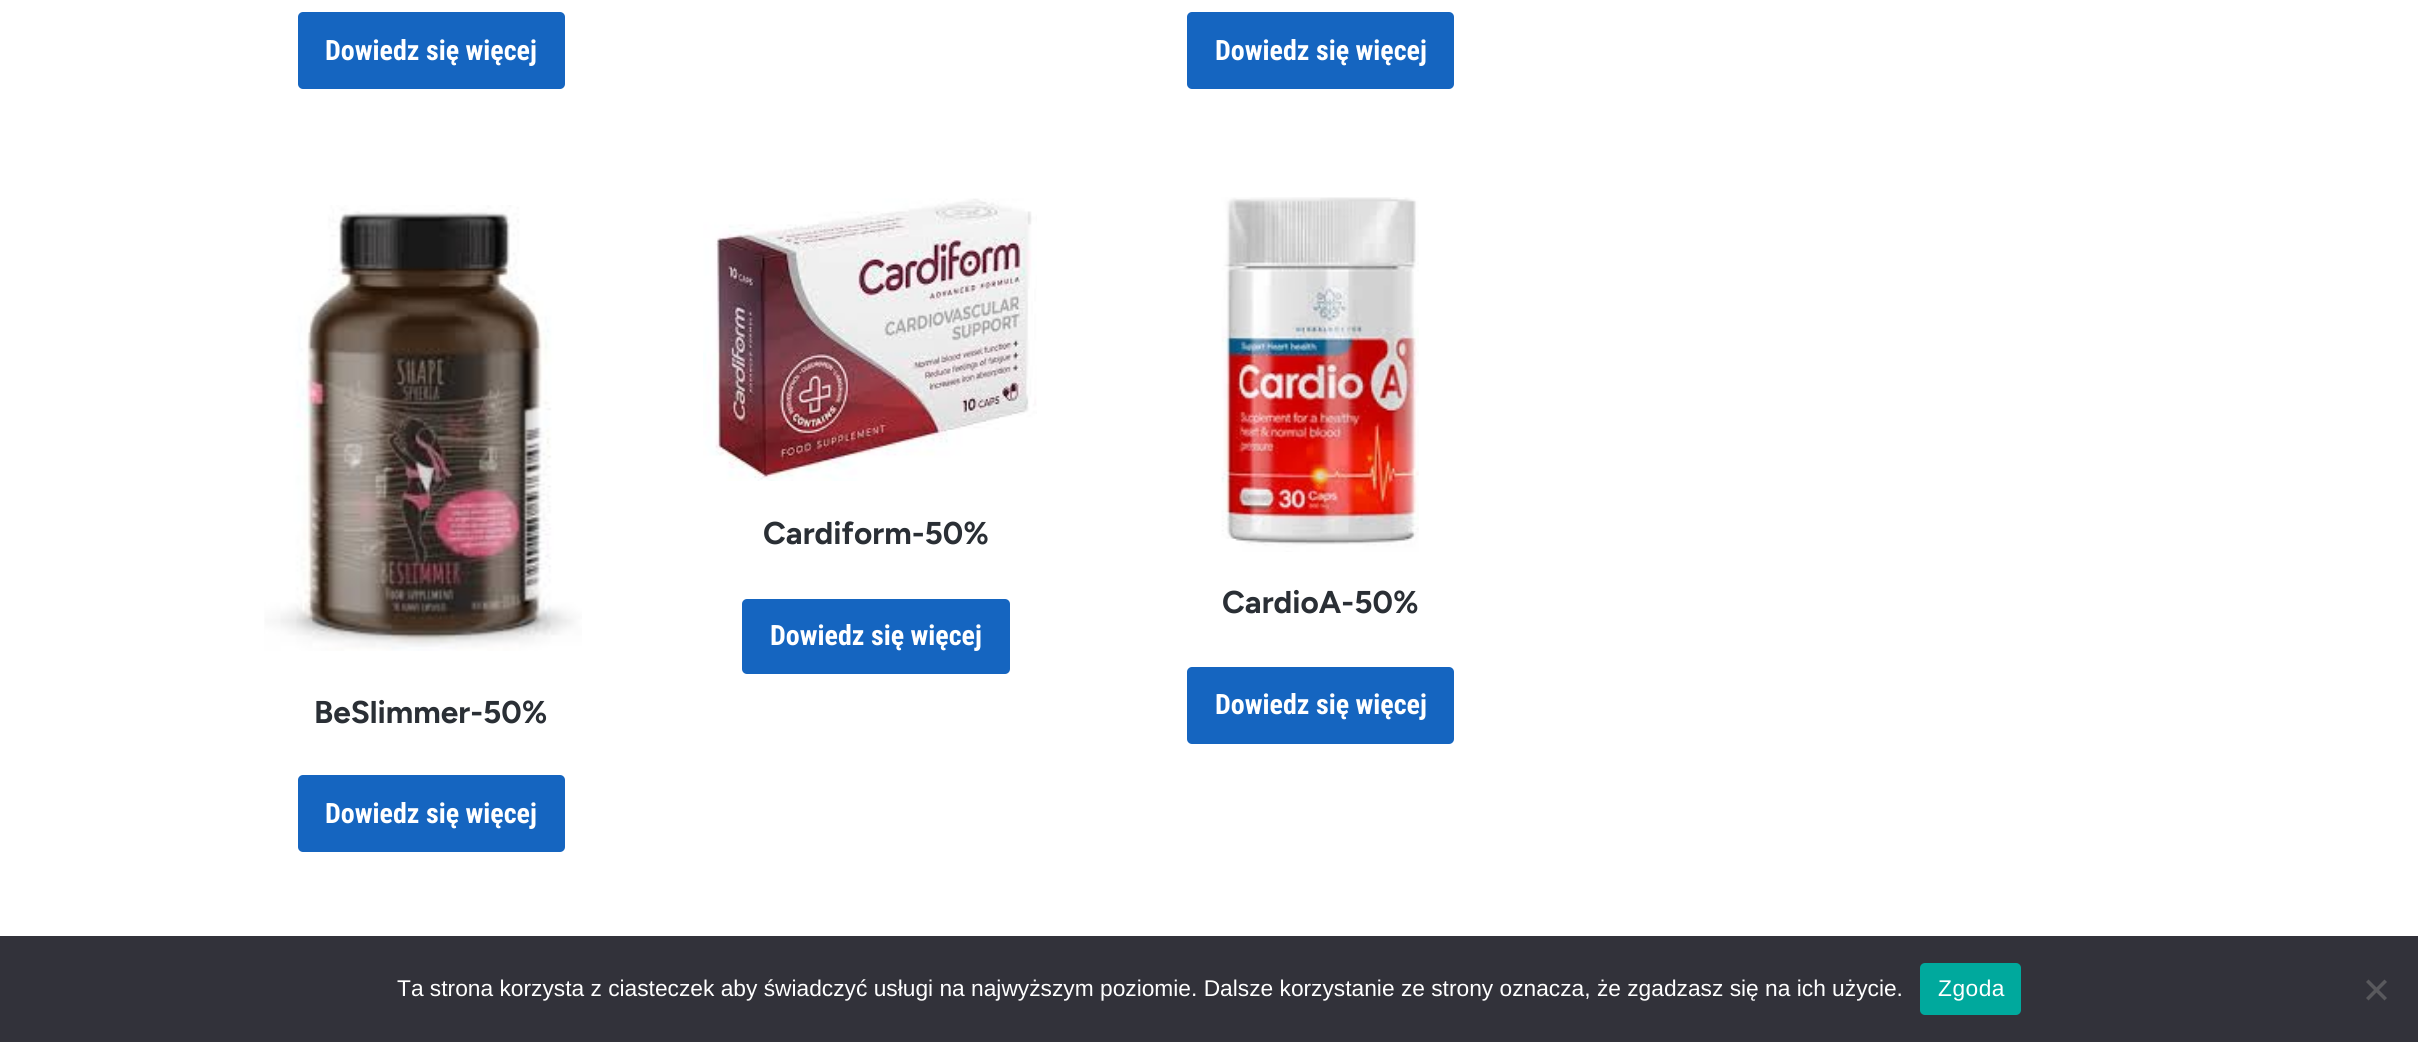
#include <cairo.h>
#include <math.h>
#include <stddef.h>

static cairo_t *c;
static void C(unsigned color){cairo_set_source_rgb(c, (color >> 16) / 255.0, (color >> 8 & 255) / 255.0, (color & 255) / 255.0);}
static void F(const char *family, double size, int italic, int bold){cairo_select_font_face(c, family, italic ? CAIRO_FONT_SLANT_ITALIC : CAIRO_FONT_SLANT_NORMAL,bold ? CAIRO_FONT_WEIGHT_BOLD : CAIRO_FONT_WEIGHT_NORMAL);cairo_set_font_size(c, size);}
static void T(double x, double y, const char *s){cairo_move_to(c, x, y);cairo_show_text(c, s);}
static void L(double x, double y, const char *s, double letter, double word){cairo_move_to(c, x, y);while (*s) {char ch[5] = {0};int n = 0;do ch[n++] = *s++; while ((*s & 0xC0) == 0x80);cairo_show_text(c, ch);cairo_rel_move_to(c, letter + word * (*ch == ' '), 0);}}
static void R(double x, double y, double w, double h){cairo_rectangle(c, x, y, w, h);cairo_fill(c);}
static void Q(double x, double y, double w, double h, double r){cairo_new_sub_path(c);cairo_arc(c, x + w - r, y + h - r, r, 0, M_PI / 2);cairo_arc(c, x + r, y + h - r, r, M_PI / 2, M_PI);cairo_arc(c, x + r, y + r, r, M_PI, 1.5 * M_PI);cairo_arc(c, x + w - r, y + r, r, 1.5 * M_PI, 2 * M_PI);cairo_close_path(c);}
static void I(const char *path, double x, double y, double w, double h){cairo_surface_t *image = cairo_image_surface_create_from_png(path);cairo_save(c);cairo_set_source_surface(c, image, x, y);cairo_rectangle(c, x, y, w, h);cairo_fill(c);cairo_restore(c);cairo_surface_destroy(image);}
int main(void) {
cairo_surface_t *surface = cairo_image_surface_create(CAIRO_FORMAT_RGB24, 2418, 1042);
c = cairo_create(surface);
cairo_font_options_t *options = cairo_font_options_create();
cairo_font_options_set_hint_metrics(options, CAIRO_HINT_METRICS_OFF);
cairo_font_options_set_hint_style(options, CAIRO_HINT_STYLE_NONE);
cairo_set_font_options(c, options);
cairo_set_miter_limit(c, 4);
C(0xffffff);
cairo_paint(c);
C(0x1565c0);
Q(298,12,267,77,5);
cairo_fill(c);
F("Roboto Condensed",28,0,1);
C(0xffffff);
T(325,60,"Dowiedz się więcej");
C(0x1565c0);
Q(1187,12,267,77,5);
cairo_fill(c);
C(0xffffff);
T(1215,60,"Dowiedz się więcej");
I("1.png",703,198,334,283);
F("Figtree",31.5,0,1);
C(0x2a2f35);
T(763,544,"Cardiform-50%");
C(0x1565c0);
Q(742,599,268,75,5);
cairo_fill(c);
F("Roboto Condensed",28,0,1);
C(0xffffff);
T(770,645,"Dowiedz się więcej");
I("2.png",1221,197,198,355);
F("Figtree",31.5,0,1);
C(0x2a2f35);
T(1222,613,"CardioA-50%");
C(0x1565c0);
Q(1187,667,267,77,5);
cairo_fill(c);
F("Roboto Condensed",28,0,1);
C(0xffffff);
T(1215,714,"Dowiedz się więcej");
I("3.png",264,205,318,446);
F("Figtree",31.5,0,1);
C(0x2a2f35);
T(314,723,"BeSlimmer-50%");
C(0x1565c0);
Q(298,775,267,77,5);
cairo_fill(c);
F("Roboto Condensed",28,0,1);
C(0xffffff);
T(325,823,"Dowiedz się więcej");
C(0x32323a);
R(0,936,2418,106);
F("Liberation Sans",22.75,0,0);
C(0xffffff);
T(397,996,"Ta strona korzysta z ciasteczek aby świadczyć usługi na najwyższym poziomie. Dalsze korzystanie ze strony oznacza, że zgadzasz się na ich użycie.");
C(0x00a99d);
Q(1920,963,101,52,5);
cairo_fill(c);
C(0xffffff);
L(1938,996,"Zgoda",.5,0);
C(0x59595d);
cairo_new_path(c);
cairo_move_to(c,2384.5,979.5);
cairo_line_to(c,2387,982);
cairo_line_to(c,2368.5,1000.5);
cairo_line_to(c,2366,998);
cairo_close_path(c);
cairo_fill(c);
cairo_new_path(c);
cairo_move_to(c,2366,982);
cairo_line_to(c,2368.5,979.5);
cairo_line_to(c,2387,998);
cairo_line_to(c,2384.5,1000.5);
cairo_close_path(c);
cairo_fill(c);
cairo_surface_write_to_png(surface, "o.png");
cairo_font_options_destroy(options);
cairo_destroy(c);
cairo_surface_destroy(surface);
return 0;
}
